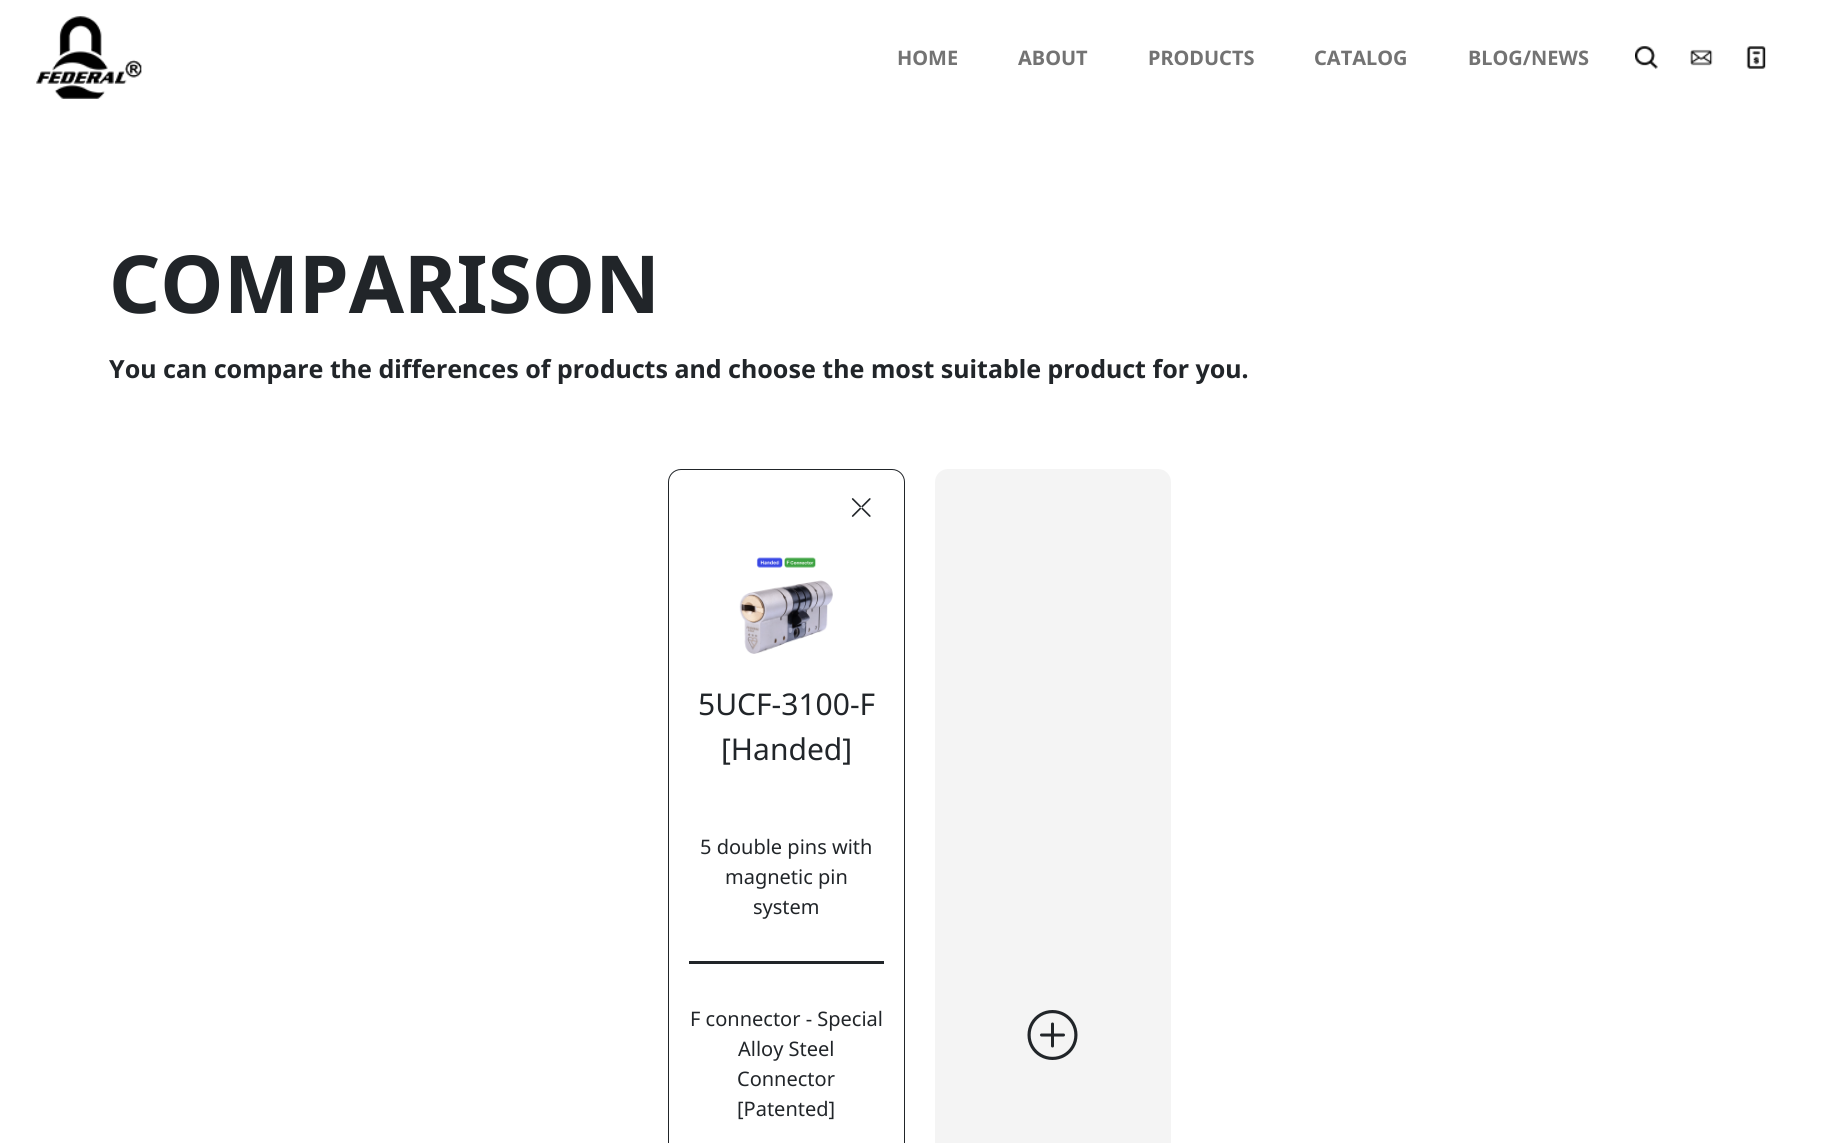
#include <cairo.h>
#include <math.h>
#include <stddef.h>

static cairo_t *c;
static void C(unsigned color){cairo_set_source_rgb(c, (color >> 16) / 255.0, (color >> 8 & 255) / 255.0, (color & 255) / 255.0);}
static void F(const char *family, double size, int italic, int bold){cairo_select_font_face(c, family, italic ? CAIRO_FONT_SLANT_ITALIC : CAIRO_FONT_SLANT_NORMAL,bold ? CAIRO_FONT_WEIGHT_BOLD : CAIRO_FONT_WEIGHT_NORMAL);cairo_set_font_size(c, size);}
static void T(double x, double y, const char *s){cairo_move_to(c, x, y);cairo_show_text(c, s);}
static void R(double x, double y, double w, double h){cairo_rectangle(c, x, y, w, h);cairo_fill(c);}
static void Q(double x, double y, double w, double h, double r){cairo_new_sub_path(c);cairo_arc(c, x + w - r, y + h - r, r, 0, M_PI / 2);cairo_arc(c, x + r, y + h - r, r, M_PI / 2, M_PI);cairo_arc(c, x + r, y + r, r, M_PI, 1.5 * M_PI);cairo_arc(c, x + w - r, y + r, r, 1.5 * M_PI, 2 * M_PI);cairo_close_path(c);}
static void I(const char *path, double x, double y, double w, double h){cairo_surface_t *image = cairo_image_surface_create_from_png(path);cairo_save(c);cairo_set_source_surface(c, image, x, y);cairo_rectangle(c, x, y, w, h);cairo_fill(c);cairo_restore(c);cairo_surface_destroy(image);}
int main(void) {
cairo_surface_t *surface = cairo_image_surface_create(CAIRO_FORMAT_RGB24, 1838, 1143);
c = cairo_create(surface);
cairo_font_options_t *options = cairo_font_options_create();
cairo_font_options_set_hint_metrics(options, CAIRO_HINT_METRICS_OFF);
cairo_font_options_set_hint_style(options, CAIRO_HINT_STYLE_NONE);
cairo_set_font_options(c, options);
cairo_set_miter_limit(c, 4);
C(0xffffff);
cairo_paint(c);
I("1.png",36,16,106,83);
F("Noto Sans",20,0,1);
C(0x737373);
T(897,65,"HOME");
T(1018,65,"ABOUT");
T(1148,65,"PRODUCTS");
T(1314,65,"CATALOG");
T(1468,65,"BLOG/NEWS");
I("2.png",1635,46,23,23);
I("3.png",1690,49,23,17);
I("4.png",1746,46,20,23);
F("Noto Sans",80,0,1);
C(0x212529);
T(109,313,"COMPARISON");
F("Noto Sans",25,0,1);
T(109,378,"You can compare the differences of products and choose the most suitable product for you.");
Q(668.5,469.5,236,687,12.5);
cairo_set_line_width(c,1);
cairo_stroke(c);
I("5.png",851,498,20,19);
I("6.png",739,557,94,97);
F("Noto Sans",30,0,0);
T(698,715,"5UCF-3100-F");
T(721,760,"[Handed]");
R(689,961,195,3);
F("Noto Sans",20,0,0);
T(700,854,"5 double pins with");
T(725,884,"magnetic pin");
T(753,914,"system");
T(690,1026,"F connector - Special");
T(738,1056,"Alloy Steel");
T(737,1086,"Connector");
T(737,1116,"[Patented]");
C(0xf4f4f4);
Q(935,469,236,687,13);
cairo_fill(c);
I("7.png",1027,1010,51,50);
cairo_surface_write_to_png(surface, "o.png");
cairo_font_options_destroy(options);
cairo_destroy(c);
cairo_surface_destroy(surface);
return 0;
}
